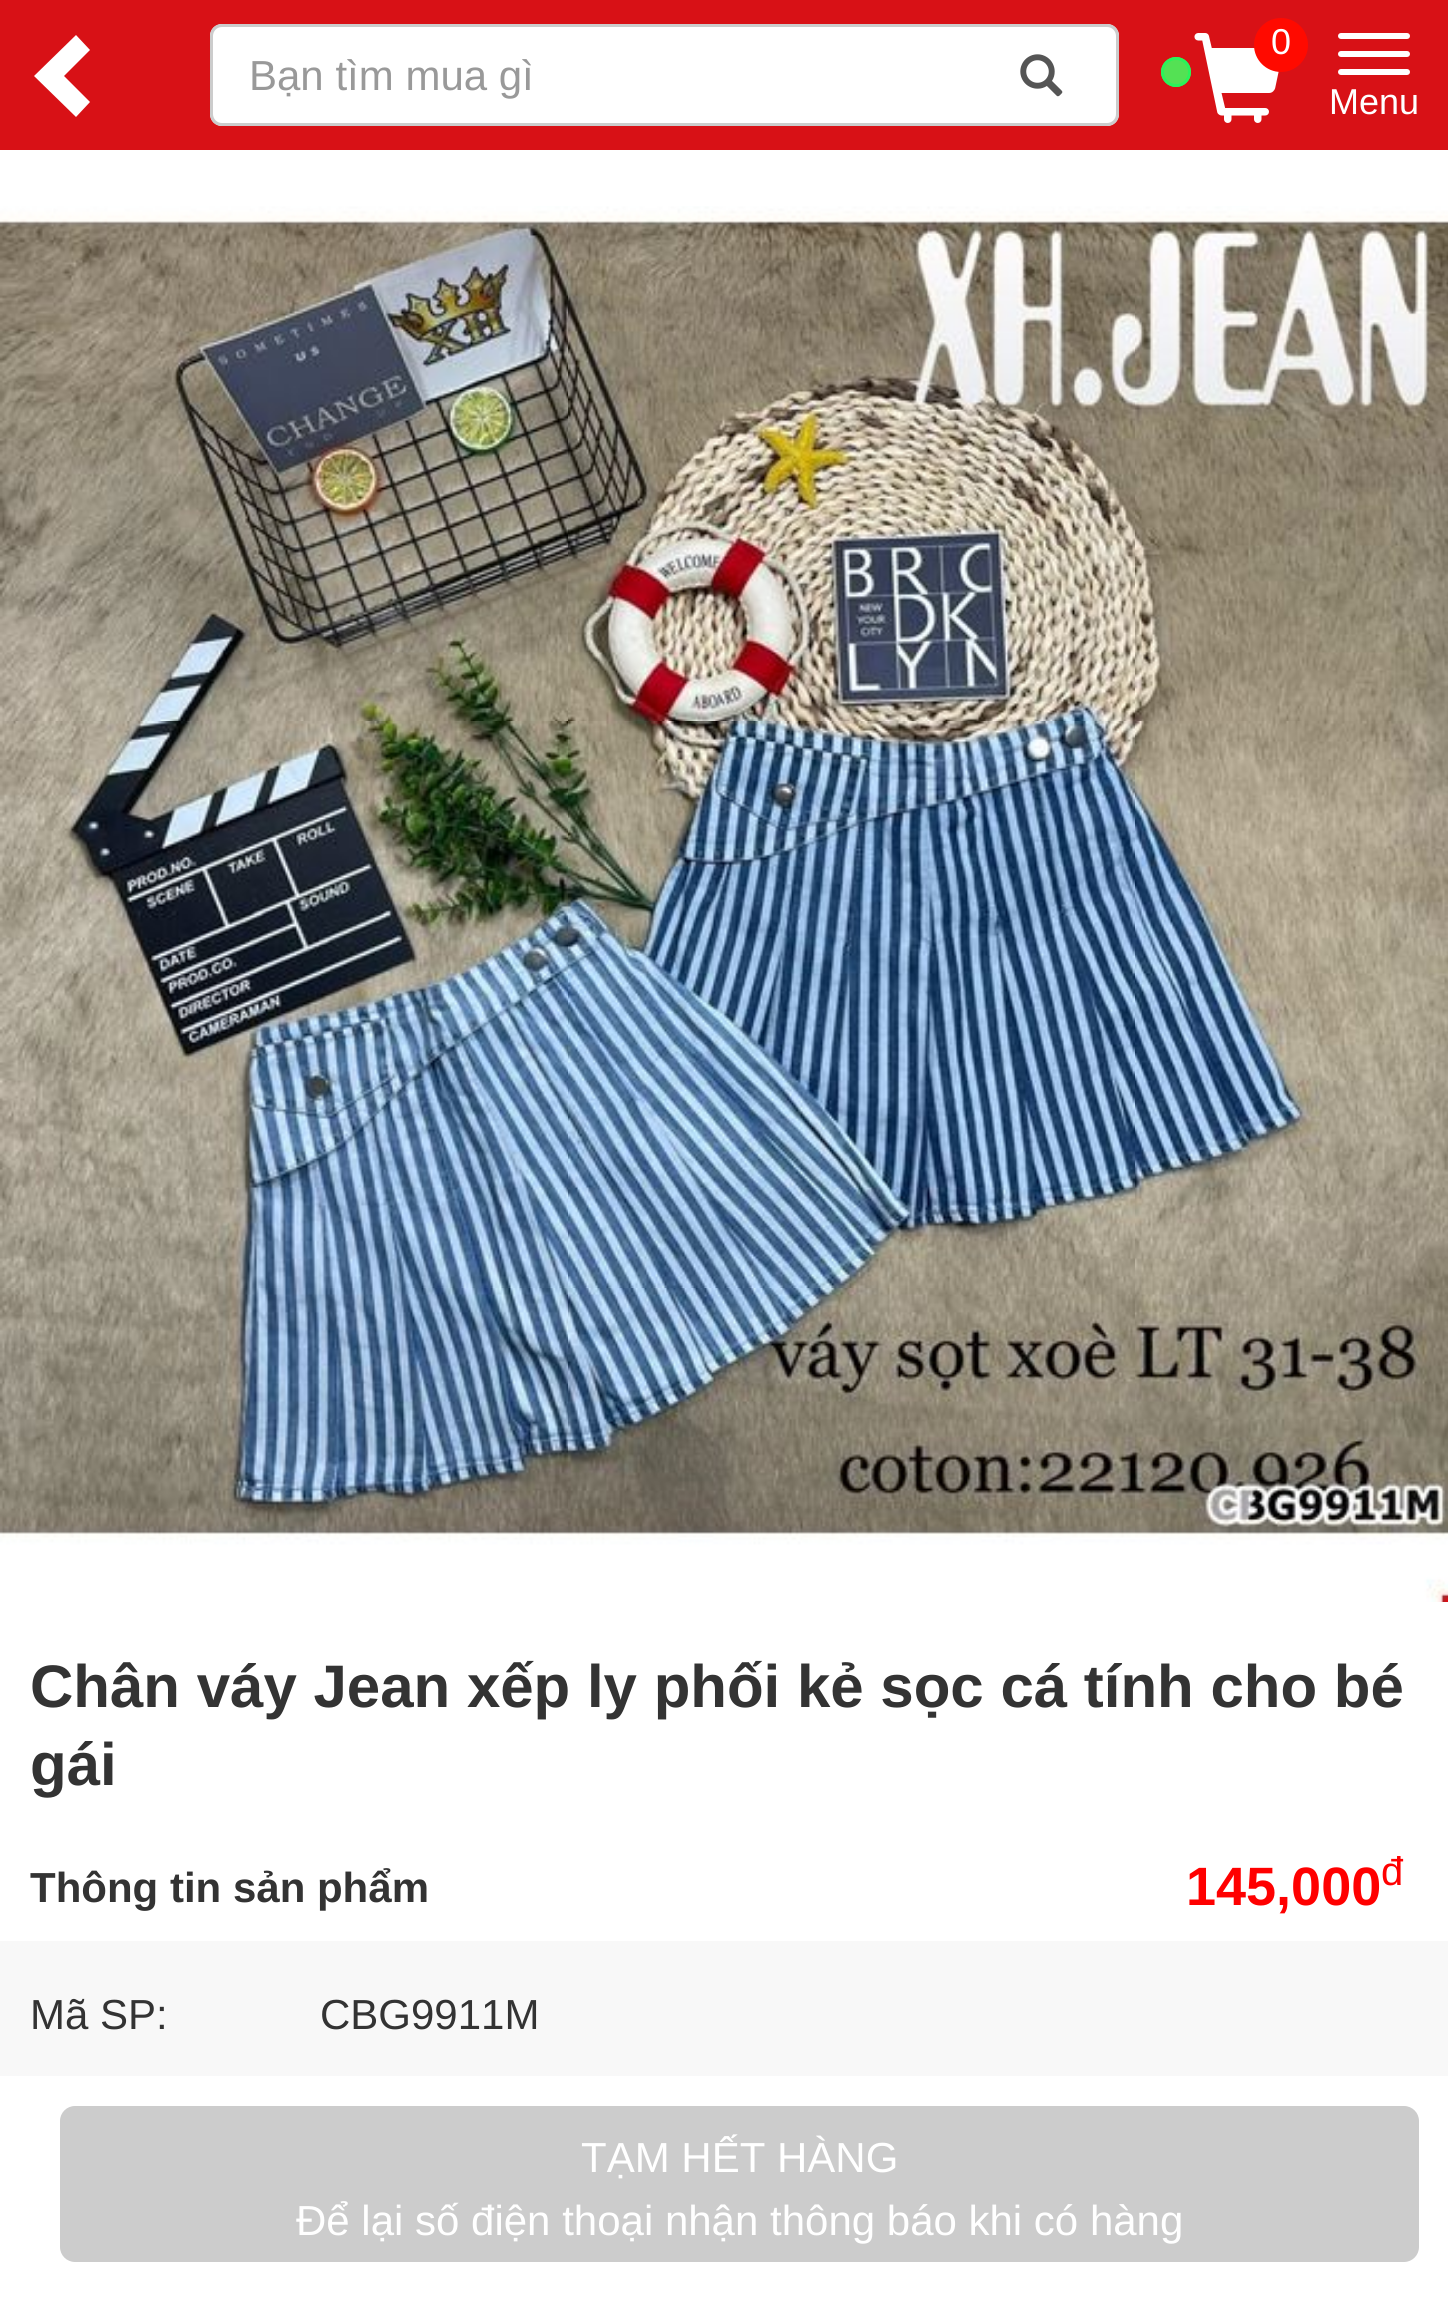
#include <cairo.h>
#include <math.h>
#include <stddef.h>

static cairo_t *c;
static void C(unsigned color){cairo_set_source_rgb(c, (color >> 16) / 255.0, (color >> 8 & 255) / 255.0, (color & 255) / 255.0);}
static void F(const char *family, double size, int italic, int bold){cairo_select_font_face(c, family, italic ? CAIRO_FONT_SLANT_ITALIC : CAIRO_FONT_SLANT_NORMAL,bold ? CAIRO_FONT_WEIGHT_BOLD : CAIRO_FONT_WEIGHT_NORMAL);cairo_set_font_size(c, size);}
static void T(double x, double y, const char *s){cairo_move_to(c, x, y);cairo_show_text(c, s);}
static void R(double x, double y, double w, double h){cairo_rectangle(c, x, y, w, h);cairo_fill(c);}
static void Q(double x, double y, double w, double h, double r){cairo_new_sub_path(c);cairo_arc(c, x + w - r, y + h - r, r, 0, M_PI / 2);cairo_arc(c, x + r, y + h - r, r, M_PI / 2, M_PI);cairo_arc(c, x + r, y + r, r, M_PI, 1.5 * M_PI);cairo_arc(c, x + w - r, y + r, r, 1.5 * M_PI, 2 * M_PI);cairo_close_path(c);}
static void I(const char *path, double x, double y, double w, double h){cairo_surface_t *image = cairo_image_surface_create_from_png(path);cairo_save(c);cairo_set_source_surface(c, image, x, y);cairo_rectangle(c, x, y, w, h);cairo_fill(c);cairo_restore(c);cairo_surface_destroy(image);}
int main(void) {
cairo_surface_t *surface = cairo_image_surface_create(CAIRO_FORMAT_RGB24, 1448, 2314);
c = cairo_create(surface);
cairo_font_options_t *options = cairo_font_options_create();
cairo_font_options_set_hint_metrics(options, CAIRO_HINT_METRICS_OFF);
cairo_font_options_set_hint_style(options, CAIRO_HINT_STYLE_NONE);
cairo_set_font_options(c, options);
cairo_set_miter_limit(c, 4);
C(0xffffff);
cairo_paint(c);
C(0xd81116);
R(0,0,1448,150);
C(0xffffff);
cairo_new_path(c);
cairo_move_to(c,90,50);
cairo_line_to(c,64,76);
cairo_line_to(c,90,102);
cairo_line_to(c,76,117);
cairo_line_to(c,34,76);
cairo_line_to(c,76,35);
cairo_close_path(c);
cairo_fill(c);
cairo_new_path(c);
cairo_move_to(c,222,24);
cairo_line_to(c,966,24);
cairo_line_to(c,966,126);
cairo_line_to(c,222,126);
cairo_curve_to(c,215.5,126,210,120.5,210,114);
cairo_line_to(c,210,36);
cairo_curve_to(c,210,29.5,215.5,24,222,24);
cairo_close_path(c);
cairo_fill(c);
C(0xcccccc);
cairo_set_fill_rule(c,CAIRO_FILL_RULE_EVEN_ODD);
cairo_new_path(c);
cairo_move_to(c,222,24);
cairo_line_to(c,966,24);
cairo_line_to(c,966,126);
cairo_line_to(c,222,126);
cairo_curve_to(c,215,126,210,121,210,114);
cairo_line_to(c,210,36);
cairo_curve_to(c,210,29,215,24,222,24);
cairo_close_path(c);
cairo_move_to(c,222,27);
cairo_line_to(c,966,27);
cairo_line_to(c,966,123);
cairo_line_to(c,222,123);
cairo_curve_to(c,217,123,213,119,213,114);
cairo_line_to(c,213,36);
cairo_curve_to(c,213,31,217,27,222,27);
cairo_close_path(c);
cairo_fill(c);
F("Liberation Sans",42,0,0);
C(0x999999);
T(249,90,"Bạn tìm mua gì");
C(0xffffff);
cairo_new_path(c);
cairo_move_to(c,966,24);
cairo_line_to(c,1107,24);
cairo_curve_to(c,1113.5,24,1119,29.5,1119,36);
cairo_line_to(c,1119,114);
cairo_curve_to(c,1119,120.5,1113.5,126,1107,126);
cairo_line_to(c,966,126);
cairo_close_path(c);
cairo_fill(c);
C(0xcccccc);
cairo_new_path(c);
cairo_move_to(c,966,24);
cairo_line_to(c,1107,24);
cairo_curve_to(c,1114,24,1119,29,1119,36);
cairo_line_to(c,1119,114);
cairo_curve_to(c,1119,121,1114,126,1107,126);
cairo_line_to(c,966,126);
cairo_close_path(c);
cairo_move_to(c,966,27);
cairo_line_to(c,1107,27);
cairo_curve_to(c,1112,27,1116,31,1116,36);
cairo_line_to(c,1116,114);
cairo_curve_to(c,1116,119,1112,123,1107,123);
cairo_line_to(c,966,123);
cairo_close_path(c);
cairo_fill(c);
I("1.png",1020,54,43,43);
C(0x2bf359);
cairo_arc(c,1176,72,15,0,2 * M_PI);
cairo_fill(c);
cairo_set_source_rgba(c,0.984,0.62,0.259,0.2);
cairo_arc(c,1176,72,13.5,0,2 * M_PI);
cairo_fill_preserve(c);
C(0x2bf359);
cairo_set_line_width(c,3);
cairo_stroke(c);
I("2.png",1194,33,85,90);
C(0xff0a00);
cairo_arc(c,1281,45,27,0,2 * M_PI);
cairo_fill(c);
F("Liberation Sans",36,0,0);
C(0xffffff);
T(1271,54,"0");
Q(1338,33,72,6,3);
cairo_fill(c);
Q(1338,51,72,6,3);
cairo_fill(c);
Q(1338,69,72,6,3);
cairo_fill(c);
T(1329,114,"Menu");
I("3.png",0,206,1448,1396);
F("Liberation Sans",60,0,1);
C(0x333333);
T(30,1707,"Chân váy Jean xếp ly phối kẻ sọc cá tính cho bé");
T(30,1785,"gái");
F("Liberation Sans",42,0,1);
T(30,1902,"Thông tin sản phẩm");
F("Liberation Sans",54,0,1);
C(0xff0000);
T(1186,1905,"145,000");
F("Liberation Sans",40,0,0);
T(1381,1885,"đ");
C(0xf8f8f8);
R(0,1941,1448,135);
F("Liberation Sans",42,0,0);
C(0x333333);
T(30,2029,"Mã SP:");
T(320,2029,"CBG9911M");
C(0xcccccc);
Q(60,2106,1359,156,15);
cairo_fill(c);
C(0xffffff);
T(581,2172,"TẠM HẾT HÀNG");
T(296,2235,"Để lại số điện thoại nhận thông báo khi có hàng");
cairo_surface_write_to_png(surface, "o.png");
cairo_font_options_destroy(options);
cairo_destroy(c);
cairo_surface_destroy(surface);
return 0;
}
